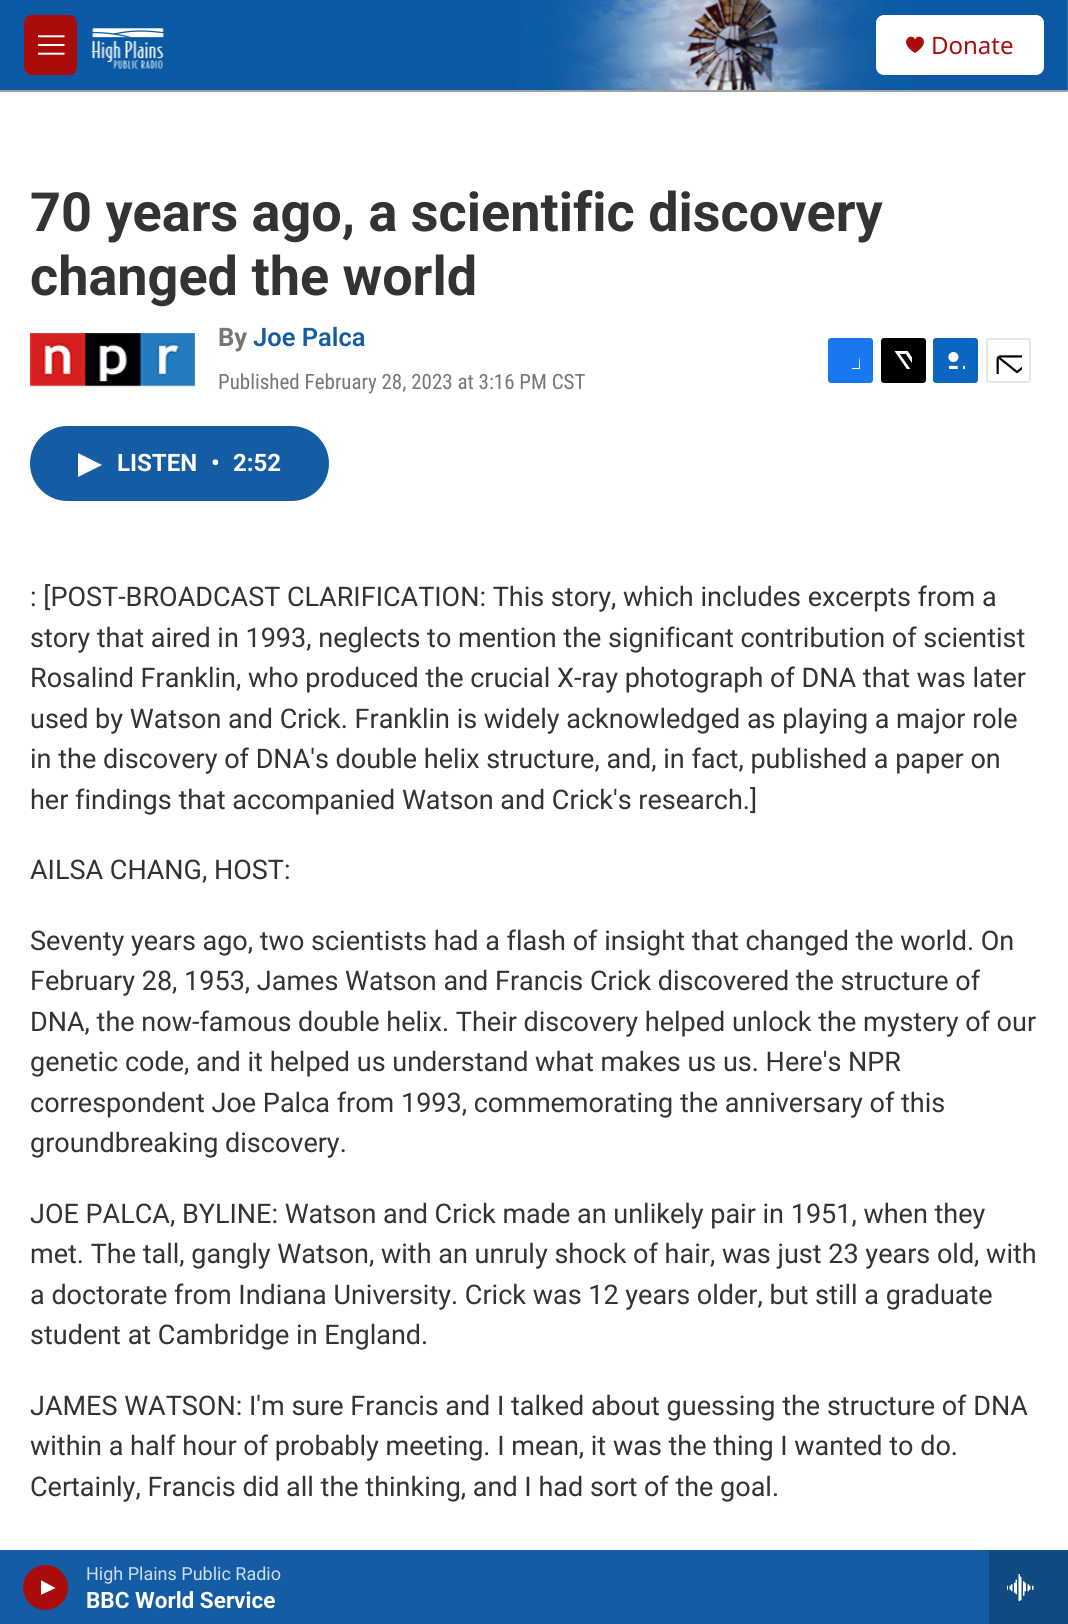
#include <cairo.h>
#include <math.h>
#include <stddef.h>

static cairo_t *c;
static void C(unsigned color){cairo_set_source_rgb(c, (color >> 16) / 255.0, (color >> 8 & 255) / 255.0, (color & 255) / 255.0);}
static void F(const char *family, double size, int italic, int bold){cairo_select_font_face(c, family, italic ? CAIRO_FONT_SLANT_ITALIC : CAIRO_FONT_SLANT_NORMAL,bold ? CAIRO_FONT_WEIGHT_BOLD : CAIRO_FONT_WEIGHT_NORMAL);cairo_set_font_size(c, size);}
static void T(double x, double y, const char *s){cairo_move_to(c, x, y);cairo_show_text(c, s);}
static void R(double x, double y, double w, double h){cairo_rectangle(c, x, y, w, h);cairo_fill(c);}
static void Q(double x, double y, double w, double h, double r){cairo_new_sub_path(c);cairo_arc(c, x + w - r, y + h - r, r, 0, M_PI / 2);cairo_arc(c, x + r, y + h - r, r, M_PI / 2, M_PI);cairo_arc(c, x + r, y + r, r, M_PI, 1.5 * M_PI);cairo_arc(c, x + w - r, y + r, r, 1.5 * M_PI, 2 * M_PI);cairo_close_path(c);}
static void I(const char *path, double x, double y, double w, double h){cairo_surface_t *image = cairo_image_surface_create_from_png(path);cairo_save(c);cairo_set_source_surface(c, image, x, y);cairo_rectangle(c, x, y, w, h);cairo_fill(c);cairo_restore(c);cairo_surface_destroy(image);}
int main(void) {
cairo_surface_t *surface = cairo_image_surface_create(CAIRO_FORMAT_RGB24, 1068, 1624);
c = cairo_create(surface);
cairo_font_options_t *options = cairo_font_options_create();
cairo_font_options_set_hint_metrics(options, CAIRO_HINT_METRICS_OFF);
cairo_font_options_set_hint_style(options, CAIRO_HINT_STYLE_NONE);
cairo_set_font_options(c, options);
cairo_set_miter_limit(c, 4);
C(0xffffff);
cairo_paint(c);
C(0xa0a0a0);
R(0,90,1068,2);
I("1.png",0,0,1068,90);
C(0xaa0c0c);
Q(24,15,53,60,8);
cairo_fill(c);
I("2.png",38,35,27,20);
I("3.png",91,24,73,45);
C(0xffffff);
Q(876,15,168,60,8);
cairo_fill(c);
C(0xaa0c0c);
cairo_new_path(c);
cairo_move_to(c,915,39.5);
cairo_curve_to(c,912,31.5,896.5,41.5,915,53);
cairo_curve_to(c,933.5,41.5,918,31.5,915,39.5);
cairo_close_path(c);
cairo_fill(c);
F("Noto Sans",24,0,0);
T(931,54,"Donate");
C(0x145ca3);
R(0,1550,989,74);
C(0xaa0c0c);
cairo_new_path(c);
cairo_arc(c,45.5,1587.5,22.5,0,2 * M_PI);
cairo_fill(c);
cairo_save(c);
cairo_rectangle(c,41,1580,15,16);
cairo_clip(c);
C(0xffffff);
cairo_new_path(c);
cairo_move_to(c,40.5,1580);
cairo_line_to(c,55.5,1588);
cairo_line_to(c,40.5,1595);
cairo_close_path(c);
cairo_fill(c);
cairo_restore(c);
F("Roboto",18,0,0);
C(0xd0deed);
T(86,1580,"High Plains Public Radio");
F("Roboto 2",22.5,0,1);
C(0xffffff);
T(86,1608,"BBC World Service");
C(0x104a82);
R(989,1550,79,74);
I("4.png",1007,1574,27,27);
F("Roboto",54,0,1);
C(0x333333);
T(30,231,"70 years ago, a scientific discovery");
T(30,295,"changed the world");
I("5.png",30,333,165,54);
F("Roboto",25.5,0,1);
C(0x767676);
T(218,346,"By");
F("Roboto SemiBold",25.5,0,0);
C(0x145ca3);
T(253,346,"Joe Palca");
F("Roboto Condensed",21,0,0);
C(0x767676);
T(218,389,"Published February 28, 2023 at 3:16 PM CST");
C(0x1778f2);
Q(828,338,45,45,3);
cairo_fill(c);
cairo_save(c);
cairo_rectangle(c,842,351,18,18);
cairo_clip(c);
C(0xffffff);
cairo_new_path(c);
cairo_move_to(c,866,383);
cairo_line_to(c,859,383);
cairo_line_to(c,859,375);
cairo_line_to(c,852,375);
cairo_line_to(c,852,368);
cairo_line_to(c,859,368);
cairo_curve_to(c,859,355.5,860,350,873,352);
cairo_line_to(c,873,359);
cairo_curve_to(c,864.5,359,866,360.5,866,368);
cairo_line_to(c,873,368);
cairo_line_to(c,872,375);
cairo_line_to(c,866,375);
cairo_close_path(c);
cairo_fill(c);
cairo_restore(c);
C(0x000000);
Q(881,338,45,45,3);
cairo_fill(c);
I("6.png",894,351,18,18);
C(0x0a66c1);
Q(933,338,45,45,3);
cairo_fill(c);
I("7.png",948,352,17,17);
Q(987,339,43,43,2);
C(0xe6e6e6);
cairo_stroke(c);
I("8.png",996,355,26,19);
C(0x145ca3);
Q(30,426,299,75,37.5);
cairo_fill(c);
C(0xffffff);
cairo_new_path(c);
cairo_move_to(c,78,453);
cairo_line_to(c,102,465);
cairo_line_to(c,78,477);
cairo_close_path(c);
cairo_fill(c);
F("Roboto 2",24,0,1);
T(117,471,"LISTEN");
T(211,471,"•");
T(233,471,"2:52");
F("Roboto",27,0,0);
C(0x333333);
T(30,606,": [POST-BROADCAST CLARIFICATION: This story, which includes excerpts from a");
T(30,647,"story that aired in 1993, neglects to mention the significant contribution of scientist");
T(30,687,"Rosalind Franklin, who produced the crucial X-ray photograph of DNA that was later");
T(30,728,"used by Watson and Crick. Franklin is widely acknowledged as playing a major role");
T(30,768,"in the discovery of DNA's double helix structure, and, in fact, published a paper on");
T(30,809,"her findings that accompanied Watson and Crick's research.]");
T(30,879,"AILSA CHANG, HOST:");
T(30,950,"Seventy years ago, two scientists had a flash of insight that changed the world. On");
T(30,990,"February 28, 1953, James Watson and Francis Crick discovered the structure of");
T(30,1031,"DNA, the now-famous double helix. Their discovery helped unlock the mystery of our");
T(30,1071,"genetic code, and it helped us understand what makes us us. Here's NPR");
T(30,1112,"correspondent Joe Palca from 1993, commemorating the anniversary of this");
T(30,1152,"groundbreaking discovery.");
T(30,1223,"JOE PALCA, BYLINE: Watson and Crick made an unlikely pair in 1951, when they");
T(30,1263,"met. The tall, gangly Watson, with an unruly shock of hair, was just 23 years old, with");
T(30,1304,"a doctorate from Indiana University. Crick was 12 years older, but still a graduate");
T(30,1344,"student at Cambridge in England.");
T(30,1415,"JAMES WATSON: I'm sure Francis and I talked about guessing the structure of DNA");
T(30,1455,"within a half hour of probably meeting. I mean, it was the thing I wanted to do.");
T(30,1496,"Certainly, Francis did all the thinking, and I had sort of the goal.");
cairo_surface_write_to_png(surface, "o.png");
cairo_font_options_destroy(options);
cairo_destroy(c);
cairo_surface_destroy(surface);
return 0;
}
